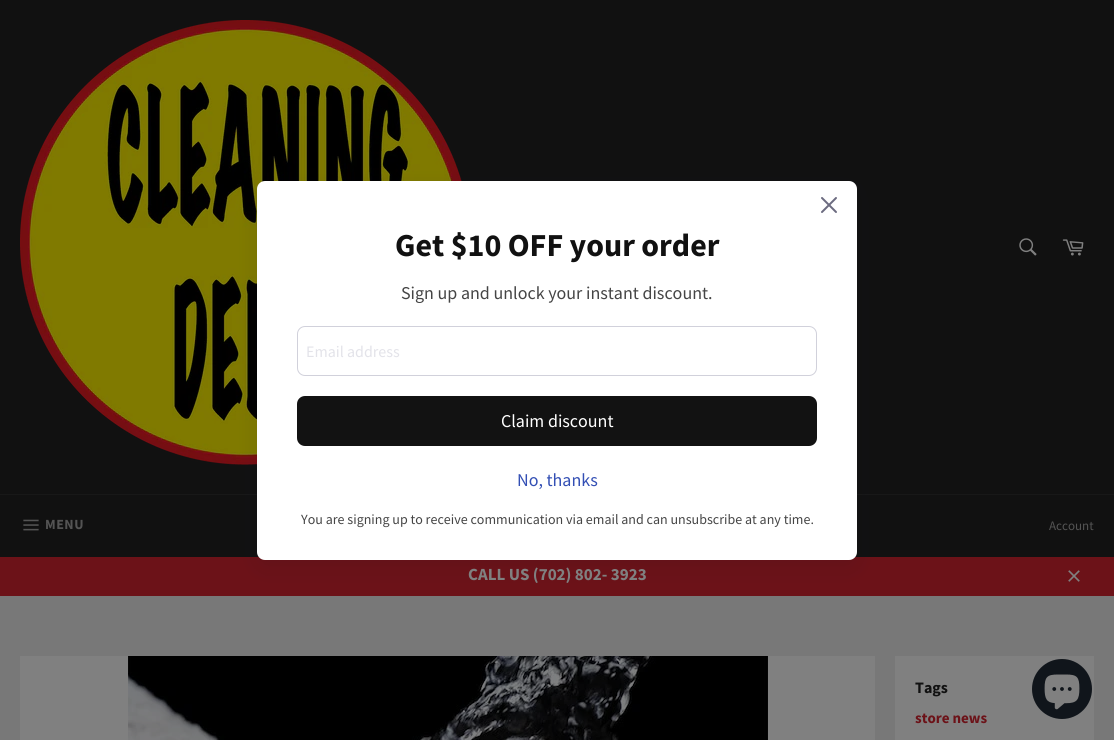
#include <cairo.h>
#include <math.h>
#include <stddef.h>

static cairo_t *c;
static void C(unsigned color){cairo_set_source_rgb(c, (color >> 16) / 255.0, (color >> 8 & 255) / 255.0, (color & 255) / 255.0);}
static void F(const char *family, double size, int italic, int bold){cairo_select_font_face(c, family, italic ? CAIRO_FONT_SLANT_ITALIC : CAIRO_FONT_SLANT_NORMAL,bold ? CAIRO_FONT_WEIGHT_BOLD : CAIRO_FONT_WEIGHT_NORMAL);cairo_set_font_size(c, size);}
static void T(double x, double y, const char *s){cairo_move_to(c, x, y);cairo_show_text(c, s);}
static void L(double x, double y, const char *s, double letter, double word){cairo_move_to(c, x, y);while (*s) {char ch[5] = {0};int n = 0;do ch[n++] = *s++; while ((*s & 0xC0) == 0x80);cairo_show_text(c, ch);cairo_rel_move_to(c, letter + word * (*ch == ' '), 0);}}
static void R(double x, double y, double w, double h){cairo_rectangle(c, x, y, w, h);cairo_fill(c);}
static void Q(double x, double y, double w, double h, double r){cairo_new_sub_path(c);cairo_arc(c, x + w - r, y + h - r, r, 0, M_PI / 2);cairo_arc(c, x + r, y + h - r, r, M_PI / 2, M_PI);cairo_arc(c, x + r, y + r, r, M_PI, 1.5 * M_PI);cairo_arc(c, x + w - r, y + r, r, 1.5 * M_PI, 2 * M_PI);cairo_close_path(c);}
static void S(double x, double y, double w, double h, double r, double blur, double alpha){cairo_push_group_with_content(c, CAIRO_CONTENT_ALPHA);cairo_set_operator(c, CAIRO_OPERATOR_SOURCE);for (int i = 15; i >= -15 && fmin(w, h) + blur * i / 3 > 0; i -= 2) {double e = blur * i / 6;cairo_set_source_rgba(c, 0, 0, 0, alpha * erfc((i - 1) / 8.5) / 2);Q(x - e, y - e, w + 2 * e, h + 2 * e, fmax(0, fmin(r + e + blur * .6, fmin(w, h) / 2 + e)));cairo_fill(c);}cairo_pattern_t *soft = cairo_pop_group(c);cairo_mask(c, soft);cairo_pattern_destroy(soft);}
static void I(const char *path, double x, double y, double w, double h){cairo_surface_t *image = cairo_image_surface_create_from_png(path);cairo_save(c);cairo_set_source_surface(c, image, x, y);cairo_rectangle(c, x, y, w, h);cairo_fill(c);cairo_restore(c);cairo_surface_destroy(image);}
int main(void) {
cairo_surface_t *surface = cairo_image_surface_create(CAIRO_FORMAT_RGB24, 1114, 740);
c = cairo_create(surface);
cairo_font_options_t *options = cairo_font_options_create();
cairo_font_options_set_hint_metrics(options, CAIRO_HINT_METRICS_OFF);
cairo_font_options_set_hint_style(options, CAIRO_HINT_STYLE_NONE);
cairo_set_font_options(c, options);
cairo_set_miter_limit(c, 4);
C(0x787878);
cairo_paint(c);
C(0x111111);
R(0,0,1114,494);
I("2.png",20,20,442,445);
R(0,495,1114,62);
C(0x181818);
R(0,494,1114,1);
C(0x6c1218);
R(0,557,1114,39);
C(0x121127);
S(257,189,600,379,8,10,.1);
C(0xffffff);
Q(257,181,600,379,8);
cairo_fill(c);
I("1.png",821,197,16,16);
F("Source Sans Pro",32,0,1);
C(0x111111);
T(395,256,"Get $10 OFF your order");
F("Source Sans Pro",18,0,0);
C(0x454545);
T(401,299,"Sign up and unlock your instant discount.");
Q(297.5,326.5,519,49,7.5);
C(0xd1d1db);
cairo_set_line_width(c,1);
cairo_stroke(c);
F("Source Sans Pro",16,0,0);
C(0xe3e3e9);
T(306,357,"Email address");
C(0x121212);
Q(297,396,520,50,8);
cairo_fill(c);
F("Source Sans Pro",18,0,0);
C(0xffffff);
T(501,427,"Claim discount");
C(0x334fb4);
T(517,486,"No, thanks");
F("Source Sans Pro",14,0,0);
C(0x454545);
T(301,524,"You are signing up to receive communication via email and can unsubscribe at any time.");
I("3.png",1019,238,18,18);
I("4.png",1062,239,22,17);
I("5.png",23,519,16,12);
F("Source Sans Pro",14,0,1);
C(0x545454);
L(45,529,"MENU",.5,0);
F("Source Sans Pro",13,0,0);
T(1049,530,"Account");
F("Source Sans Pro",17,0,1);
C(0x808080);
T(468,580,"CALL US (702) 802- 3923");
I("6.png",1068,570,12,12);
R(20,656,855,84);
I("7.png",128,656,640,84);
R(895,656,199,84);
F("Source Sans Pro",16,0,1);
C(0x111111);
T(915,693,"Tags");
F("Source Sans Pro",15,0,1);
C(0x6c1218);
T(915,723,"store news");
C(0x10151b);
cairo_new_path(c);
cairo_arc(c,1062,689,30,0,2 * M_PI);
cairo_fill(c);
I("8.png",1044,674,36,36);
cairo_surface_write_to_png(surface, "o.png");
cairo_font_options_destroy(options);
cairo_destroy(c);
cairo_surface_destroy(surface);
return 0;
}
